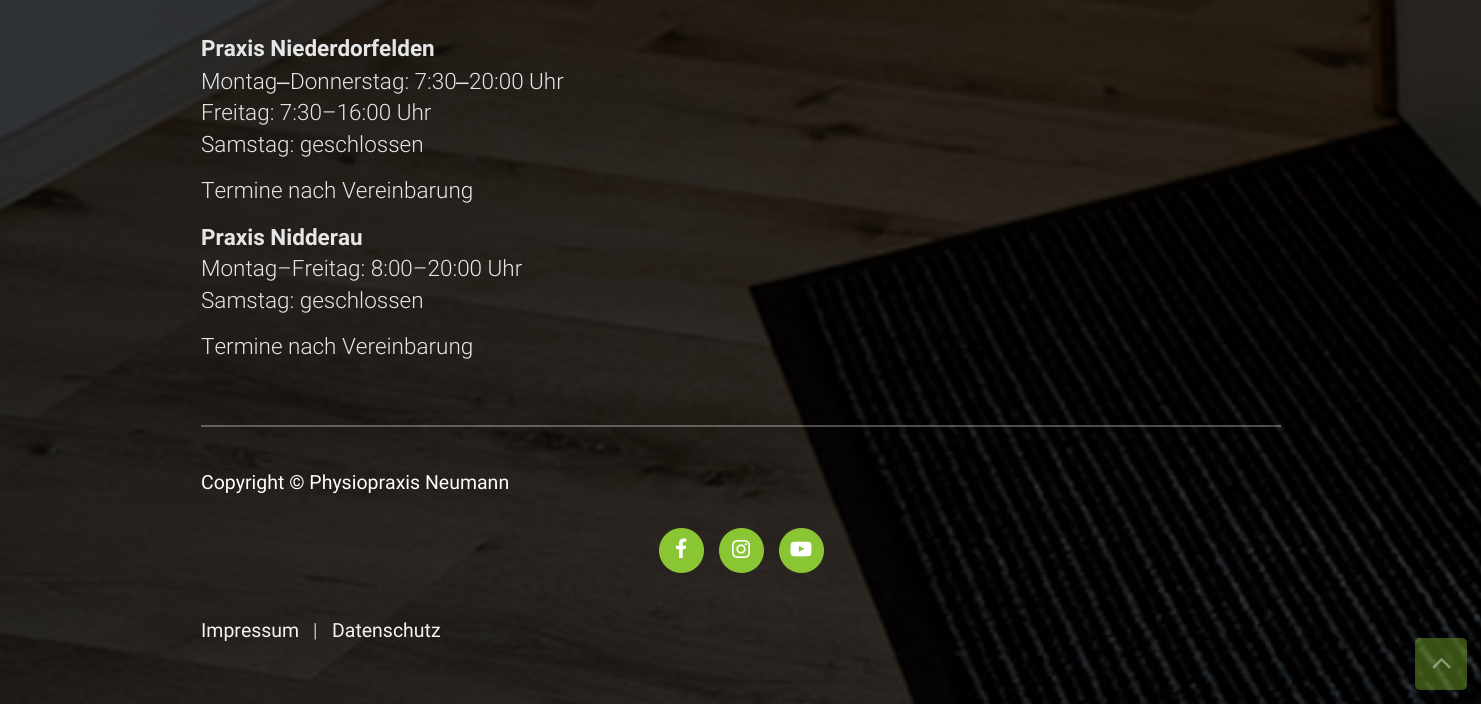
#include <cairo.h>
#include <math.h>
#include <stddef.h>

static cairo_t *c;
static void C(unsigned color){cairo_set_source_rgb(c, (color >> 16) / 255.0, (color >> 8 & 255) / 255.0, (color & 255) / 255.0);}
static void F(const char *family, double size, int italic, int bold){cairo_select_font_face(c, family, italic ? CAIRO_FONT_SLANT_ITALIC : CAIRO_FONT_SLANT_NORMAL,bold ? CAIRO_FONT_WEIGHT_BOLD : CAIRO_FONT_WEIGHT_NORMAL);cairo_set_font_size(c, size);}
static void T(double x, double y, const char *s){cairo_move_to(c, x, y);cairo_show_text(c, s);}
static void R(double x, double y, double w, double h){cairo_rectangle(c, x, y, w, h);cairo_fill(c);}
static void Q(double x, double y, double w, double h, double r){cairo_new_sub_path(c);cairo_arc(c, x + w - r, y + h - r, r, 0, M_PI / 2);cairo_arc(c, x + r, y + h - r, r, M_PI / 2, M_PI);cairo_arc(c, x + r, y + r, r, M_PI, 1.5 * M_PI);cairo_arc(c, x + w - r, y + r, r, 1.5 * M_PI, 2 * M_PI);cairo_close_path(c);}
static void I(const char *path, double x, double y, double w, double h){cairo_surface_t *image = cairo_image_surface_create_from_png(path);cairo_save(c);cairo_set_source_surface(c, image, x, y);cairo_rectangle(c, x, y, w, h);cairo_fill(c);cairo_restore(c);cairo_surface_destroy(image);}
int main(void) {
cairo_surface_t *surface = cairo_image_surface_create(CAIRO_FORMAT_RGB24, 1481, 704);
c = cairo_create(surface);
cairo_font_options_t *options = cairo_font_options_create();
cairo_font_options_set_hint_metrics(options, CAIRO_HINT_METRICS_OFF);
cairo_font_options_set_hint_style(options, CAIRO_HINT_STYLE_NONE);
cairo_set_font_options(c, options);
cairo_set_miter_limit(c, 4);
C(0x000000);
cairo_paint(c);
I("1.png",0,0,1481,704);
F("Roboto",22.5,0,1);
C(0xe6e6e6);
T(201,56,"Praxis Niederdorfelden");
F("Roboto Light",22.5,0,0);
T(201,89,"Montag");
F("Liberation Sans",22.5,0,0);
T(277,89,"–");
F("Roboto Light",22.5,0,0);
T(290,89,"Donnerstag: 7:30");
F("Liberation Sans",22.5,0,0);
T(456,89,"–");
F("Roboto Light",22.5,0,0);
T(469,89,"20:00 Uhr");
T(201,120,"Freitag: 7:30–16:00 Uhr");
T(201,152,"Samstag: geschlossen");
T(201,198,"Termine nach Vereinbarung");
F("Roboto",22.5,0,1);
T(201,245,"Praxis Nidderau");
F("Roboto Light",22.5,0,0);
T(201,276,"Montag–Freitag: 8:00–20:00 Uhr");
T(201,308,"Samstag: geschlossen");
T(201,354,"Termine nach Vereinbarung");
cairo_set_source_rgba(c,1,1,1,0.3);
R(201,425,1080,2);
F("Roboto",19.5,0,0);
C(0xffffff);
T(201,489,"Copyright © Physiopraxis Neumann");
C(0x8ac534);
cairo_new_path(c);
cairo_arc(c,681.5,550.5,22.5,0,2 * M_PI);
cairo_fill(c);
I("2.png",676,538,11,20);
cairo_arc(c,741.5,550.5,22.5,0,2 * M_PI);
cairo_fill(c);
I("3.png",732,540,18,18);
cairo_arc(c,801.5,550.5,22.5,0,2 * M_PI);
cairo_fill(c);
I("4.png",790,541,22,16);
C(0xf4f4f4);
T(201,637,"Impressum");
F("Roboto Light",19.5,0,0);
C(0xffffff);
T(313,637,"|");
F("Roboto",19.5,0,0);
C(0xf4f4f4);
T(332,637,"Datenschutz");
cairo_set_source_rgba(c,0.541,0.773,0.204,0.4);
Q(1415,638,52,52,5);
cairo_fill(c);
I("5.png",1432,657,19,12);
cairo_surface_write_to_png(surface, "o.png");
cairo_font_options_destroy(options);
cairo_destroy(c);
cairo_surface_destroy(surface);
return 0;
}
